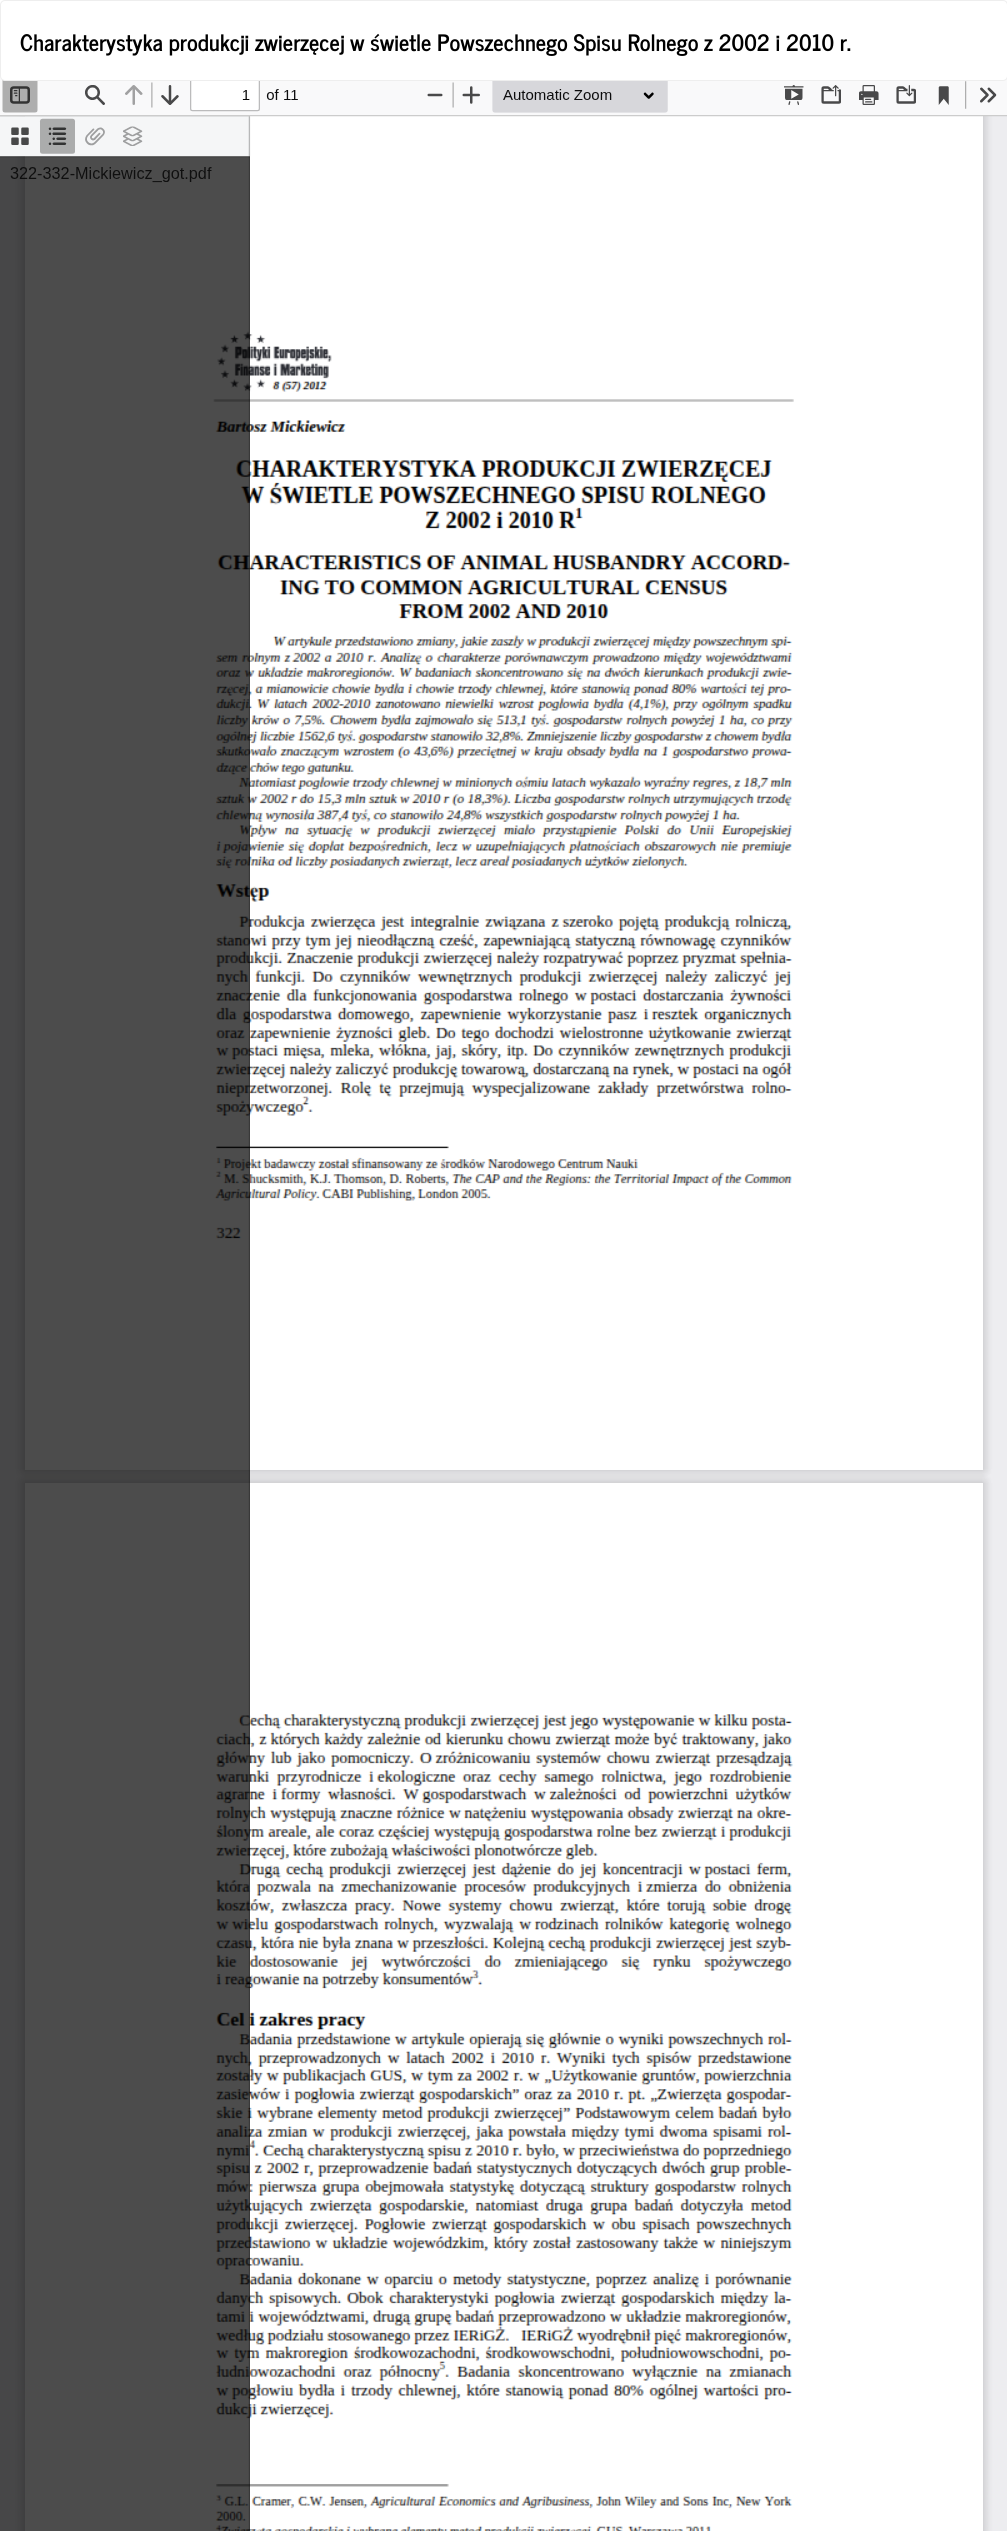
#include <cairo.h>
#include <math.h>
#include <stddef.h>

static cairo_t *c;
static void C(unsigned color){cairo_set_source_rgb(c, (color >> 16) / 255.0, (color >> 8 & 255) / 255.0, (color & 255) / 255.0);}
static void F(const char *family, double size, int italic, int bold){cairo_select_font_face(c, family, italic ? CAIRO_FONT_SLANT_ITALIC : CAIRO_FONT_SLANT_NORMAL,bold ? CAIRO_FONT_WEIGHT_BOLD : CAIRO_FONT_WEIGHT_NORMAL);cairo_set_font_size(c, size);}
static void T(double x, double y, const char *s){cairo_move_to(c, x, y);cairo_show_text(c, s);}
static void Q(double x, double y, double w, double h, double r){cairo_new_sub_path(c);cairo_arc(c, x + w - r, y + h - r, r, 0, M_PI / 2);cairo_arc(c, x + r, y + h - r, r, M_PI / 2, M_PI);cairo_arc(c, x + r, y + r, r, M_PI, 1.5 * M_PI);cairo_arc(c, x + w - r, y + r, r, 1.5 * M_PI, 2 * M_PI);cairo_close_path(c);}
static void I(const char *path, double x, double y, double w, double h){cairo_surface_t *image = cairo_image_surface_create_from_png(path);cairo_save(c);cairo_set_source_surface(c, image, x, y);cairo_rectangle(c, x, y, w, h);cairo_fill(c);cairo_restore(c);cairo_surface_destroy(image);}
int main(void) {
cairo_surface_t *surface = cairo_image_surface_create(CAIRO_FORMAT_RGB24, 1007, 2531);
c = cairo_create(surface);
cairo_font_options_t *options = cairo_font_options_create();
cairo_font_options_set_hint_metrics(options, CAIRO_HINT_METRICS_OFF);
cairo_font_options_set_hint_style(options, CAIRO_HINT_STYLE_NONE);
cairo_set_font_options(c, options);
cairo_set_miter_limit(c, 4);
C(0xffffff);
cairo_paint(c);
I("1.png",0,76,1007,2455);
C(0xffffff);
Q(.5,.5,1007,80,4.5);
cairo_fill_preserve(c);
C(0xeeeeee);
cairo_set_line_width(c,1);
cairo_stroke(c);
F("News Cycle",22.5,0,1);
C(0x000000);
T(20,51,"Charakterystyka produkcji zwierzęcej w świetle Powszechnego Spisu Rolnego z 2002 i 2010 r.");
cairo_surface_write_to_png(surface, "o.png");
cairo_font_options_destroy(options);
cairo_destroy(c);
cairo_surface_destroy(surface);
return 0;
}
